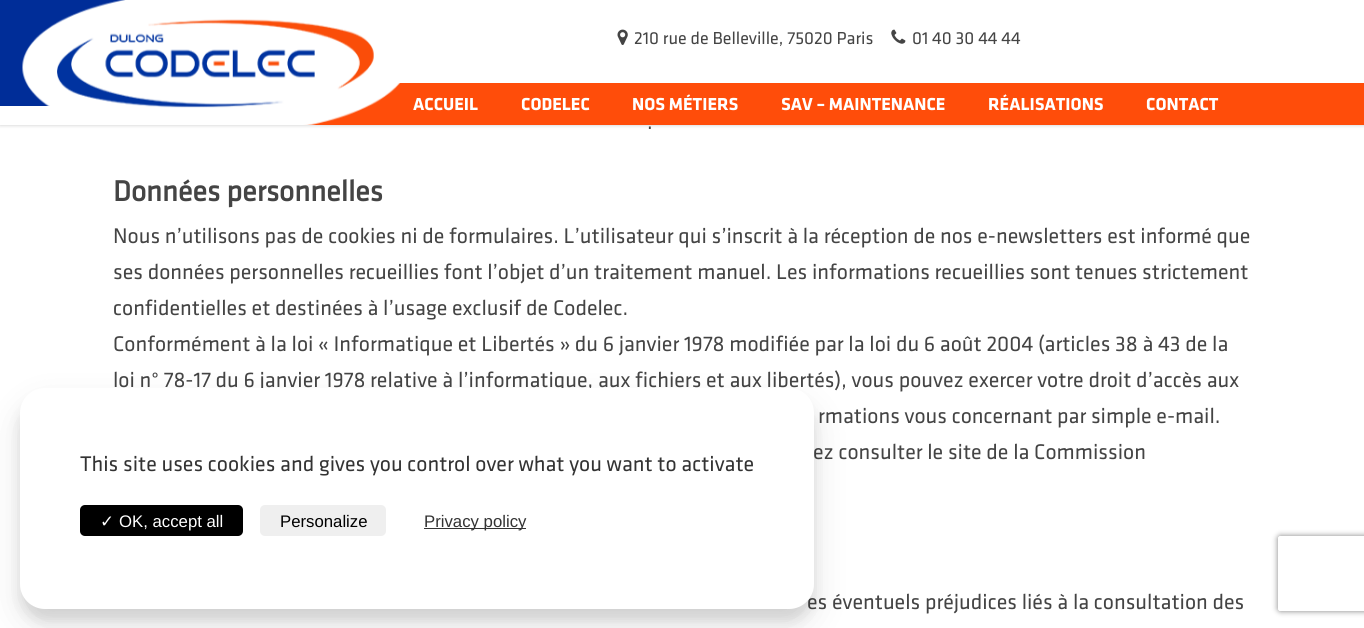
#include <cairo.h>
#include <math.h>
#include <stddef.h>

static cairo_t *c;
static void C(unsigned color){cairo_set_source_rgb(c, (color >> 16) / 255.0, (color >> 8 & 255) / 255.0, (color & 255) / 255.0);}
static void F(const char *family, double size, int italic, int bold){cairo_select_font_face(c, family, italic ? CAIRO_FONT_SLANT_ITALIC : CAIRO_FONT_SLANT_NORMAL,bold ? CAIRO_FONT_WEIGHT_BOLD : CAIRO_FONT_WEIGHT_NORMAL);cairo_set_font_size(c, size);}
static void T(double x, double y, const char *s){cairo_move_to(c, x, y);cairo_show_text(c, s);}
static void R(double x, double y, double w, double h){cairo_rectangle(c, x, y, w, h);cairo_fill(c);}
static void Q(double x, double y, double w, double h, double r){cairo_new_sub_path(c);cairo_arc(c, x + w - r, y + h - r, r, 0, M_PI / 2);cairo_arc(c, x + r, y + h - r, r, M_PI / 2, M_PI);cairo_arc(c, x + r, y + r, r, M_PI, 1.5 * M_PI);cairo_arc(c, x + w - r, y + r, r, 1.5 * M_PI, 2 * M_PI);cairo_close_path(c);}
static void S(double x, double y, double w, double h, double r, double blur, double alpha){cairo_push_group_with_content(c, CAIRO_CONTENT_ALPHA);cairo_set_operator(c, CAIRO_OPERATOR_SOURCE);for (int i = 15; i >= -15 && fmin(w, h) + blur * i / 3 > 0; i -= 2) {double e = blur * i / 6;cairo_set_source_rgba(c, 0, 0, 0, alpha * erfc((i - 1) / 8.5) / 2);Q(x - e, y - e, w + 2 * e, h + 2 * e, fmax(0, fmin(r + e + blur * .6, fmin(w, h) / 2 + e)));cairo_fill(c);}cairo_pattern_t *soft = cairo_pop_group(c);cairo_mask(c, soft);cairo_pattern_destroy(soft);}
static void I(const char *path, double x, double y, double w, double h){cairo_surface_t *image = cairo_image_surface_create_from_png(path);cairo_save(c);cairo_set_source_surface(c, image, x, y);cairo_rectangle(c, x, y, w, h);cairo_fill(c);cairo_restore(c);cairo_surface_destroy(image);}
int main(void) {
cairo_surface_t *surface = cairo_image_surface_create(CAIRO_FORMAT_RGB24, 1364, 628);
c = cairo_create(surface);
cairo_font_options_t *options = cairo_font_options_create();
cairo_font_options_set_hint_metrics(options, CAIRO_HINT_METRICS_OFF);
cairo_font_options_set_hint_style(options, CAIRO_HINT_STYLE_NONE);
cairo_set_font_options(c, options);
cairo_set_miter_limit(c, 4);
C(0xffffff);
cairo_paint(c);
C(0x000000);
S(0,0,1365,125,0,2,.22);
C(0xff4d0a);
R(303,83,1061,42);
C(0x002d98);
R(0,0,126,106);
C(0xffffff);
R(0,106,92,19);
R(343,0,1021,83);
I("1.png",22,0,379,125);
I("2.png",617,29,11,16);
F("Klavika",18,0,0);
C(0x444444);
T(634,44,"210 rue de Belleville, 75020 Paris");
I("3.png",891,29,15,15);
T(912,44,"01 40 30 44 44");
F("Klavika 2",18,0,1);
C(0xffffff);
T(413,110,"ACCUEIL");
T(521,110,"CODELEC");
T(632,110,"NOS MÉTIERS");
T(781,110,"SAV – MAINTENANCE");
T(988,110,"RÉALISATIONS");
T(1146,110,"CONTACT");
F("Klavika",22,0,0);
C(0x444444);
T(647,129,".");
F("Klavika",30,0,1);
T(113,201,"Données personnelles");
F("Klavika",22,0,0);
T(113,243,"Nous n’utilisons pas de cookies ni de formulaires. L’utilisateur qui s’inscrit à la réception de nos e-newsletters est informé que");
T(113,279,"ses données personnelles recueillies font l’objet d’un traitement manuel. Les informations recueillies sont tenues strictement");
T(113,315,"confidentielles et destinées à l’usage exclusif de Codelec.");
T(113,351,"Conformément à la loi « Informatique et Libertés » du 6 janvier 1978 modifiée par la loi du 6 août 2004 (articles 38 à 43 de la");
T(113,387,"loi n° 78-17 du 6 janvier 1978 relative à l’informatique, aux fichiers et aux libertés), vous pouvez exercer votre droit d’accès aux");
T(818,423,"rmations vous concernant par simple e-mail.");
T(813,459,"ez consulter le site de la Commission");
T(807,609,"es éventuels préjudices liés à la consultation des");
C(0x000000);
S(20,400,794,221,25,6,.1);
S(20,405,794,221,25,17.5,.1);
C(0xffffff);
Q(20,388,794,221,25);
cairo_fill(c);
C(0x333333);
T(80,471,"This site uses cookies and gives you control over what you want to activate");
C(0x000000);
Q(80,505,163,31,5);
cairo_fill(c);
F("DejaVu Sans",16.75,0,0);
C(0xffffff);
T(100,527,"✓");
F("Liberation Sans",16.75,0,0);
T(119,527,"OK, accept all");
C(0xefefef);
Q(260,505,126,31,5);
cairo_fill(c);
C(0x000000);
T(280,527,"Personalize");
C(0x333333);
R(424,528,102,1);
T(424,527,"Privacy policy");
cairo_save(c);
cairo_set_fill_rule(c,CAIRO_FILL_RULE_EVEN_ODD);
cairo_new_path(c);
cairo_move_to(c,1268,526);
cairo_line_to(c,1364,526);
cairo_line_to(c,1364,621);
cairo_line_to(c,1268,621);
cairo_close_path(c);
cairo_move_to(c,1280.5,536);
cairo_line_to(c,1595.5,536);
cairo_curve_to(c,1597,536,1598,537,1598,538.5);
cairo_line_to(c,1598,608.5);
cairo_curve_to(c,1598,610,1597,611,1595.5,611);
cairo_line_to(c,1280.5,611);
cairo_curve_to(c,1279,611,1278,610,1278,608.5);
cairo_line_to(c,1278,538.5);
cairo_curve_to(c,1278,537,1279,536,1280.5,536);
cairo_close_path(c);
cairo_clip(c);
C(0x808080);
S(1278,536,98,75,2.5,3,1);
cairo_restore(c);
cairo_surface_write_to_png(surface, "o.png");
cairo_font_options_destroy(options);
cairo_destroy(c);
cairo_surface_destroy(surface);
return 0;
}
